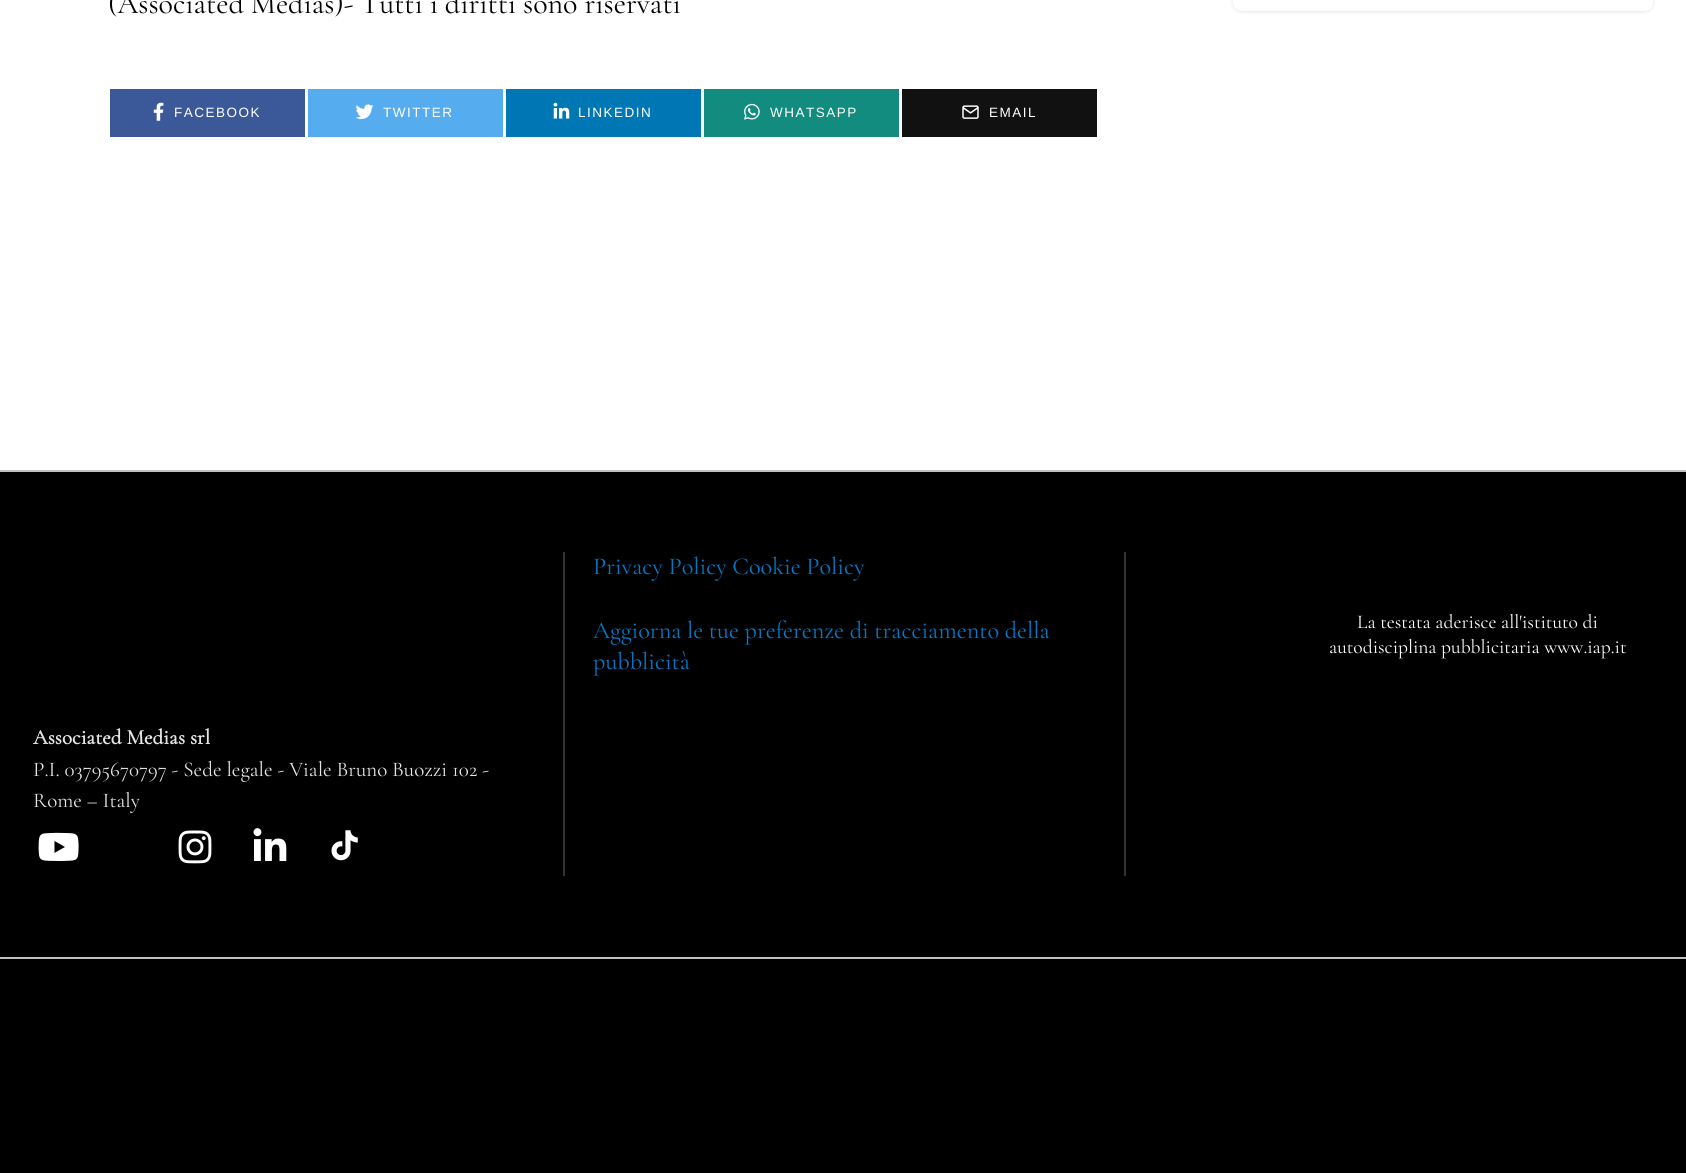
#include <cairo.h>
#include <math.h>
#include <stddef.h>

static cairo_t *c;
static void C(unsigned color){cairo_set_source_rgb(c, (color >> 16) / 255.0, (color >> 8 & 255) / 255.0, (color & 255) / 255.0);}
static void F(const char *family, double size, int italic, int bold){cairo_select_font_face(c, family, italic ? CAIRO_FONT_SLANT_ITALIC : CAIRO_FONT_SLANT_NORMAL,bold ? CAIRO_FONT_WEIGHT_BOLD : CAIRO_FONT_WEIGHT_NORMAL);cairo_set_font_size(c, size);}
static void T(double x, double y, const char *s){cairo_move_to(c, x, y);cairo_show_text(c, s);}
static void L(double x, double y, const char *s, double letter, double word){cairo_move_to(c, x, y);while (*s) {char ch[5] = {0};int n = 0;do ch[n++] = *s++; while ((*s & 0xC0) == 0x80);cairo_show_text(c, ch);cairo_rel_move_to(c, letter + word * (*ch == ' '), 0);}}
static void R(double x, double y, double w, double h){cairo_rectangle(c, x, y, w, h);cairo_fill(c);}
static void Q(double x, double y, double w, double h, double r){cairo_new_sub_path(c);cairo_arc(c, x + w - r, y + h - r, r, 0, M_PI / 2);cairo_arc(c, x + r, y + h - r, r, M_PI / 2, M_PI);cairo_arc(c, x + r, y + r, r, M_PI, 1.5 * M_PI);cairo_arc(c, x + w - r, y + r, r, 1.5 * M_PI, 2 * M_PI);cairo_close_path(c);}
static void S(double x, double y, double w, double h, double r, double blur, double alpha){cairo_push_group_with_content(c, CAIRO_CONTENT_ALPHA);cairo_set_operator(c, CAIRO_OPERATOR_SOURCE);for (int i = 15; i >= -15 && fmin(w, h) + blur * i / 3 > 0; i -= 2) {double e = blur * i / 6;cairo_set_source_rgba(c, 0, 0, 0, alpha * erfc((i - 1) / 8.5) / 2);Q(x - e, y - e, w + 2 * e, h + 2 * e, fmax(0, fmin(r + e + blur * .6, fmin(w, h) / 2 + e)));cairo_fill(c);}cairo_pattern_t *soft = cairo_pop_group(c);cairo_mask(c, soft);cairo_pattern_destroy(soft);}
static void I(const char *path, double x, double y, double w, double h){cairo_surface_t *image = cairo_image_surface_create_from_png(path);cairo_save(c);cairo_set_source_surface(c, image, x, y);cairo_rectangle(c, x, y, w, h);cairo_fill(c);cairo_restore(c);cairo_surface_destroy(image);}
int main(void) {
cairo_surface_t *surface = cairo_image_surface_create(CAIRO_FORMAT_RGB24, 1686, 1173);
c = cairo_create(surface);
cairo_font_options_t *options = cairo_font_options_create();
cairo_font_options_set_hint_metrics(options, CAIRO_HINT_METRICS_OFF);
cairo_font_options_set_hint_style(options, CAIRO_HINT_STYLE_NONE);
cairo_set_font_options(c, options);
cairo_set_miter_limit(c, 4);
C(0xffffff);
cairo_paint(c);
F("Cormorant Garamond Light",30,0,0);
C(0x000000);
T(108,13,"(Associated Medias)- Tutti i diritti sono riservati");
C(0x3b5998);
R(110,89,195,48);
I("1.png",153,102,11,19);
F("Liberation Sans",13.5,0,0);
C(0xffffff);
L(174,117,"FACEBOOK",1.5,0);
C(0x55acee);
R(308,89,195,48);
I("2.png",355,104,19,16);
C(0xffffff);
L(383,117,"TWITTER",1.5,0);
C(0x0077b5);
R(506,89,195,48);
I("3.png",553,102,17,17);
C(0xffffff);
L(578,117,"LINKEDIN",1.5,0);
C(0x128c7e);
R(704,89,195,48);
I("4.png",744,103,16,17);
C(0xffffff);
L(770,117,"WHATSAPP",1.5,0);
C(0x111111);
R(902,89,195,48);
I("5.png",962,105,17,14);
C(0xffffff);
L(989,117,"EMAIL",1.5,0);
C(0x000000);
S(1233,-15,420,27,9,2,.1);
C(0xffffff);
Q(1233,-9,420,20,9);
cairo_fill(c);
C(0x000000);
R(0,472,1686,485);
C(0xc0c1c0);
R(0,470,1686,2);
C(0x333333);
R(563,552,2,324);
F("Cormorant Garamond Light",24.25,0,0);
C(0x0579c6);
T(593,574,"Privacy Policy Cookie Policy");
T(593,638,"Aggiorna le tue preferenze di tracciamento della");
T(593,669,"pubblicità");
C(0x333333);
R(1124,552,2,324);
F("Cormorant Garamond Light",19.5,0,0);
C(0xffffff);
T(1357,628,"La testata aderisce all'istituto di");
T(1329,653,"autodisciplina pubblicitaria www.iap.it");
F("Cormorant Garamond",21,0,1);
C(0xe5e5e5);
T(33,744,"Associated Medias srl");
F("Cormorant Garamond Light",21,0,0);
T(33,776,"P.I. 03795670797 - Sede legale - Viale Bruno Buozzi 102 -");
T(33,807,"Rome – Italy");
I("6.png",38,832,41,29);
I("7.png",178,830,34,34);
I("8.png",253,828,34,33);
I("9.png",331,830,27,31);
C(0x000000);
R(0,959,1686,214);
C(0xc0c1c0);
R(0,957,1686,2);
cairo_surface_write_to_png(surface, "o.png");
cairo_font_options_destroy(options);
cairo_destroy(c);
cairo_surface_destroy(surface);
return 0;
}
